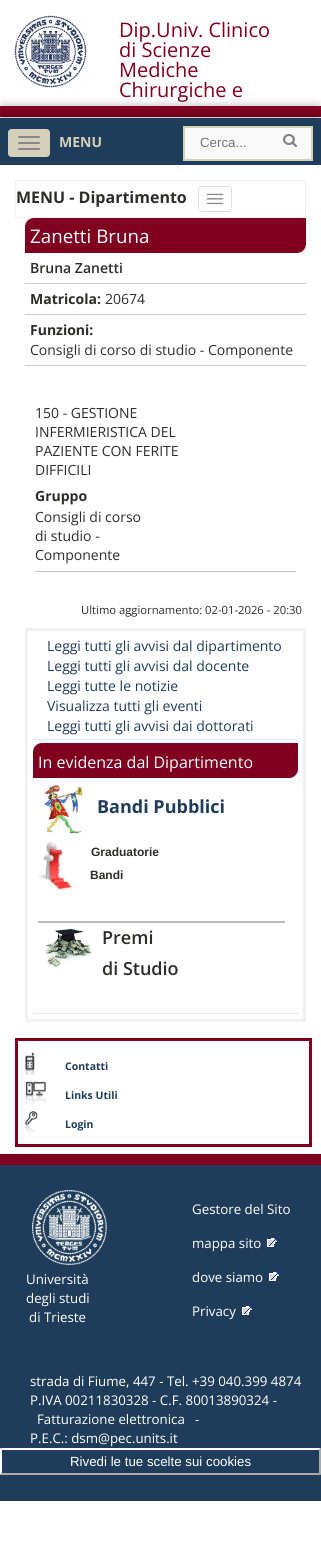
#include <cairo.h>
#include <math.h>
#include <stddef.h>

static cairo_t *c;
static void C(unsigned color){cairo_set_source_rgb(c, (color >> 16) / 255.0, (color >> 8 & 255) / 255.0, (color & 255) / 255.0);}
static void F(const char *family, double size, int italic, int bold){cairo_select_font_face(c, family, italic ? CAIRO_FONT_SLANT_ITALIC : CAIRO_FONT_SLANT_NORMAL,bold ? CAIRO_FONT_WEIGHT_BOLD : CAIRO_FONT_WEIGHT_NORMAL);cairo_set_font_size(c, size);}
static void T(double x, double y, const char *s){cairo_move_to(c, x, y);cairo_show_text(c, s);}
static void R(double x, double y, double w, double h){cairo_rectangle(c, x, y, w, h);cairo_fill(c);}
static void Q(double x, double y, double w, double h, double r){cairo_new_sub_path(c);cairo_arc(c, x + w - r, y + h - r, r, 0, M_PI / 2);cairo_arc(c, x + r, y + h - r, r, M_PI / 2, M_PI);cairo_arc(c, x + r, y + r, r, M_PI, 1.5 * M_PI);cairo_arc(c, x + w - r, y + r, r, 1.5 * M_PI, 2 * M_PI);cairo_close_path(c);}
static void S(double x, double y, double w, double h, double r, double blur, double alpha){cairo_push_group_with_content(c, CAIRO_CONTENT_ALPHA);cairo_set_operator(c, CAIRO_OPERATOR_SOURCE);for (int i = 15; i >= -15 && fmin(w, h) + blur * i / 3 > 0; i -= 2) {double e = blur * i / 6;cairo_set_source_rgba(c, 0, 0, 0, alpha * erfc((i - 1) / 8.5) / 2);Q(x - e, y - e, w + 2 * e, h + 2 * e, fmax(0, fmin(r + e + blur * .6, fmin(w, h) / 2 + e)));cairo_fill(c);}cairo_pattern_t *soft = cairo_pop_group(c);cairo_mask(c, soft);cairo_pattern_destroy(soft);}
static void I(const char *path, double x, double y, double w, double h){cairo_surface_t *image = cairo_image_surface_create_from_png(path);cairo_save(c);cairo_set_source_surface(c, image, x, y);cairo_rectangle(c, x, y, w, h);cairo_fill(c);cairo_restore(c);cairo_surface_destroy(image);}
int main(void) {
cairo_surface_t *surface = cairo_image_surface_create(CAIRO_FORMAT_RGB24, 321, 1559);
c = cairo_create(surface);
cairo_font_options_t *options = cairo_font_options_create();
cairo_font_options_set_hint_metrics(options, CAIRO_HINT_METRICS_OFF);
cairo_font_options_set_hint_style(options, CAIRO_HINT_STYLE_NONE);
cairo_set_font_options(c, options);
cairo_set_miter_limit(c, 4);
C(0xffffff);
cairo_paint(c);
I("1.png",14,15,73,73);
F("Open Sans",20,0,0);
C(0x800020);
T(119,37,"Dip.Univ. Clinico");
T(119,57,"di Scienze");
T(119,77,"Mediche");
C(0x000000);
S(2,104,317,7,0,4,.2);
C(0x800020);
T(119,97,"Chirurgiche e");
R(0,106,321,11);
C(0x000000);
S(2,116,317,43,0,4,.3);
C(0x1f3d5a);
R(0,118,321,47);
I("2.png",8,129,42,28);
F("Open Sans",14,0,1);
C(0xd4d0bc);
T(59,147,"MENU");
C(0xfafafa);
cairo_rectangle(c,184,127,128,33);
cairo_fill_preserve(c);
C(0xd4d0bc);
cairo_stroke(c);
F("Liberation Sans",13.3,0,0);
C(0x757575);
T(200,147,"Cerca...");
I("3.png",283,134,14,13);
cairo_rectangle(c,15.5,180.5,290,37);
C(0xf1f1f1);
cairo_set_line_width(c,1);
cairo_stroke(c);
F("Open Sans",16,0,1);
C(0x2e2d29);
T(16,203,"MENU - Dipartimento");
I("4.png",196,184,37,30);
C(0x800020);
cairo_new_path(c);
cairo_move_to(c,34,218);
cairo_line_to(c,306,218);
cairo_line_to(c,306,244);
cairo_curve_to(c,306,249,302,253,297,253);
cairo_line_to(c,25,253);
cairo_line_to(c,25,227);
cairo_curve_to(c,25,222,29,218,34,218);
cairo_close_path(c);
cairo_fill(c);
F("Open Sans",18.75,0,0);
C(0xf0ffff);
T(30,243,"Zanetti Bruna");
C(0xcccccc);
R(25,283,281,1);
F("Open Sans SemiBold",14,0,0);
C(0x2e2d29);
T(30,273,"Bruna Zanetti");
C(0xcccccc);
R(25,314,281,1);
F("Open Sans",14,0,1);
C(0x2e2d29);
T(30,304,"Matricola:");
F("Open Sans",14,0,0);
T(105,304,"20674");
C(0xcccccc);
R(25,365,281,1);
F("Open Sans",14,0,1);
C(0x2e2d29);
T(30,335,"Funzioni:");
F("Open Sans",14,0,0);
T(30,355,"Consigli di corso di studio - Componente");
C(0xc2c2c2);
R(35,571,261,1);
C(0x2e2d29);
T(35,418,"150 - GESTIONE");
T(35,437,"INFERMIERISTICA DEL");
T(35,456,"PAZIENTE CON FERITE");
T(35,475,"DIFFICILI");
F("Open Sans",14,0,1);
T(35,501,"Gruppo");
F("Open Sans",14,0,0);
T(35,522,"Consigli di corso");
T(35,541,"di studio -");
T(35,560,"Componente");
F("Open Sans",11.25,0,0);
T(81,614,"Ultimo aggiornamento: 02-01-2026 - 20:30");
cairo_rectangle(c,26.5,629.5,278,391);
C(0xf1f1f1);
cairo_set_line_width(c,3);
cairo_stroke(c);
C(0xe6e6e6);
R(33,739,265,1);
F("Open Sans",14,0,0);
C(0x1f3d5a);
T(47,651,"Leggi tutti gli avvisi dal dipartimento");
T(47,671,"Leggi tutti gli avvisi dal docente");
T(47,691,"Leggi tutte le notizie");
T(47,711,"Visualizza tutti gli eventi");
T(47,731,"Leggi tutti gli avvisi dai dottorati");
C(0xe6e6e6);
R(33,1013,265,1);
C(0x800020);
cairo_new_path(c);
cairo_move_to(c,42,743);
cairo_line_to(c,298,743);
cairo_line_to(c,298,769);
cairo_curve_to(c,298,774,294,778,289,778);
cairo_line_to(c,33,778);
cairo_line_to(c,33,752);
cairo_curve_to(c,33,747,37,743,42,743);
cairo_close_path(c);
cairo_fill(c);
F("Open Sans",16,0,0);
C(0xf0ffff);
T(38,768,"In evidenza dal Dipartimento");
I("5.png",43,783,40,51);
F("Open Sans",18,0,1);
C(0x1f3d5a);
T(97,813,"Bandi Pubblici");
I("6.png",38,841,34,49);
F("Liberation Sans",12,0,1);
C(0x2e2d29);
T(91,856,"Graduatorie");
T(90,879,"Bandi");
C(0xbbbbbb);
R(38,921,247,2);
I("7.png",44,927,48,40);
F("Open Sans SemiBold",18,0,0);
C(0x2e2d29);
T(102,944,"Premi");
T(102,975,"di Studio");
cairo_rectangle(c,16.5,1039.5,294,106);
C(0x800020);
cairo_stroke(c);
I("8.png",25,1052,10,23);
F("Open Sans",10.5,0,1);
C(0x1f3d5a);
T(65,1070,"Contatti");
I("9.png",25,1081,21,23);
T(65,1099,"Links Utili");
I("10.png",25,1111,13,22);
T(65,1128,"Login");
R(0,1165,321,336);
C(0x800020);
R(0,1154,321,11);
I("11.png",32,1190,75,75);
F("Open Sans",13.3,0,0);
C(0xffffff);
T(26,1284,"Università");
T(26,1303,"degli studi");
T(29,1322,"di Trieste");
T(192,1214,"Gestore del Sito");
T(192,1248,"mappa sito");
I("12.png",266,1237,12,11);
T(192,1282,"dove siamo");
I("12.png",268,1271,12,11);
T(192,1316,"Privacy");
I("12.png",241,1305,12,11);
T(30,1386,"strada di Fiume, 447 - Tel. +39 040.399 4874");
T(30,1405,"P.IVA 00211830328 - C.F. 80013890324 -");
T(37,1424,"Fatturazione elettronica");
T(195,1424,"-");
T(30,1443,"P.E.C.: dsm@pec.units.it");
cairo_new_path(c);
cairo_move_to(c,0,1448);
cairo_line_to(c,321,1448);
cairo_line_to(c,319,1450);
cairo_line_to(c,2,1450);
cairo_close_path(c);
cairo_fill(c);
C(0xaaaaaa);
cairo_new_path(c);
cairo_move_to(c,321,1448);
cairo_line_to(c,321,1475);
cairo_line_to(c,319,1473);
cairo_line_to(c,319,1450);
cairo_close_path(c);
cairo_fill(c);
cairo_new_path(c);
cairo_move_to(c,321,1475);
cairo_line_to(c,0,1475);
cairo_line_to(c,2,1473);
cairo_line_to(c,319,1473);
cairo_close_path(c);
cairo_fill(c);
C(0xffffff);
cairo_new_path(c);
cairo_move_to(c,0,1475);
cairo_line_to(c,0,1448);
cairo_line_to(c,2,1450);
cairo_line_to(c,2,1473);
cairo_close_path(c);
cairo_fill(c);
F("Liberation Sans",13.3,0,0);
T(70,1466,"Rivedi le tue scelte sui cookies");
cairo_surface_write_to_png(surface, "o.png");
cairo_font_options_destroy(options);
cairo_destroy(c);
cairo_surface_destroy(surface);
return 0;
}
